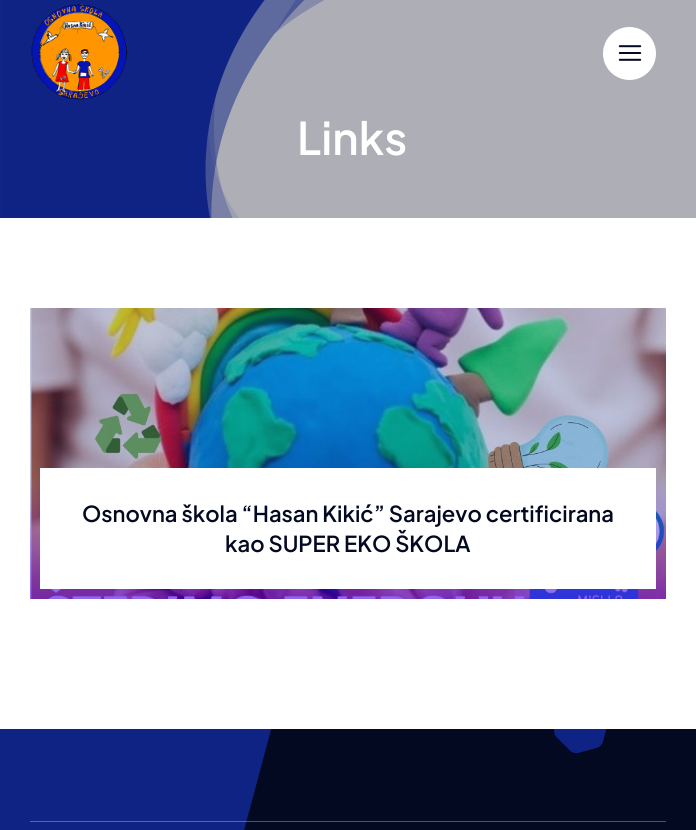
#include <cairo.h>
#include <math.h>
#include <stddef.h>

static cairo_t *c;
static void C(unsigned color){cairo_set_source_rgb(c, (color >> 16) / 255.0, (color >> 8 & 255) / 255.0, (color & 255) / 255.0);}
static void F(const char *family, double size, int italic, int bold){cairo_select_font_face(c, family, italic ? CAIRO_FONT_SLANT_ITALIC : CAIRO_FONT_SLANT_NORMAL,bold ? CAIRO_FONT_WEIGHT_BOLD : CAIRO_FONT_WEIGHT_NORMAL);cairo_set_font_size(c, size);}
static void T(double x, double y, const char *s){cairo_move_to(c, x, y);cairo_show_text(c, s);}
static void R(double x, double y, double w, double h){cairo_rectangle(c, x, y, w, h);cairo_fill(c);}
static void I(const char *path, double x, double y, double w, double h){cairo_surface_t *image = cairo_image_surface_create_from_png(path);cairo_save(c);cairo_set_source_surface(c, image, x, y);cairo_rectangle(c, x, y, w, h);cairo_fill(c);cairo_restore(c);cairo_surface_destroy(image);}
int main(void) {
cairo_surface_t *surface = cairo_image_surface_create(CAIRO_FORMAT_RGB24, 696, 830);
c = cairo_create(surface);
cairo_font_options_t *options = cairo_font_options_create();
cairo_font_options_set_hint_metrics(options, CAIRO_HINT_METRICS_OFF);
cairo_font_options_set_hint_style(options, CAIRO_HINT_STYLE_NONE);
cairo_set_font_options(c, options);
cairo_set_miter_limit(c, 4);
C(0xffffff);
cairo_paint(c);
C(0xadaeb6);
R(0,0,696,218);
I("3.png",0,0,324,218);
I("1.png",31,3,97,97);
C(0xffffff);
cairo_arc(c,629.5,53.5,26.5,0,2 * M_PI);
cairo_fill(c);
I("2.png",618,45,24,16);
F("Plus Jakarta Sans SemiBold",45,0,0);
T(297,155,"Links");
I("4.png",30,308,636,291);
R(40,468,616,121);
F("Plus Jakarta Sans SemiBold",22,0,0);
C(0x040922);
T(82,522,"Osnovna škola “Hasan Kikić” Sarajevo certificirana");
T(225,552,"kao SUPER EKO ŠKOLA");
R(0,729,696,101);
I("5.png",0,729,607,101);
cairo_set_source_rgba(c,1,1,1,0.3);
R(30,821,636,1);
cairo_surface_write_to_png(surface, "o.png");
cairo_font_options_destroy(options);
cairo_destroy(c);
cairo_surface_destroy(surface);
return 0;
}
